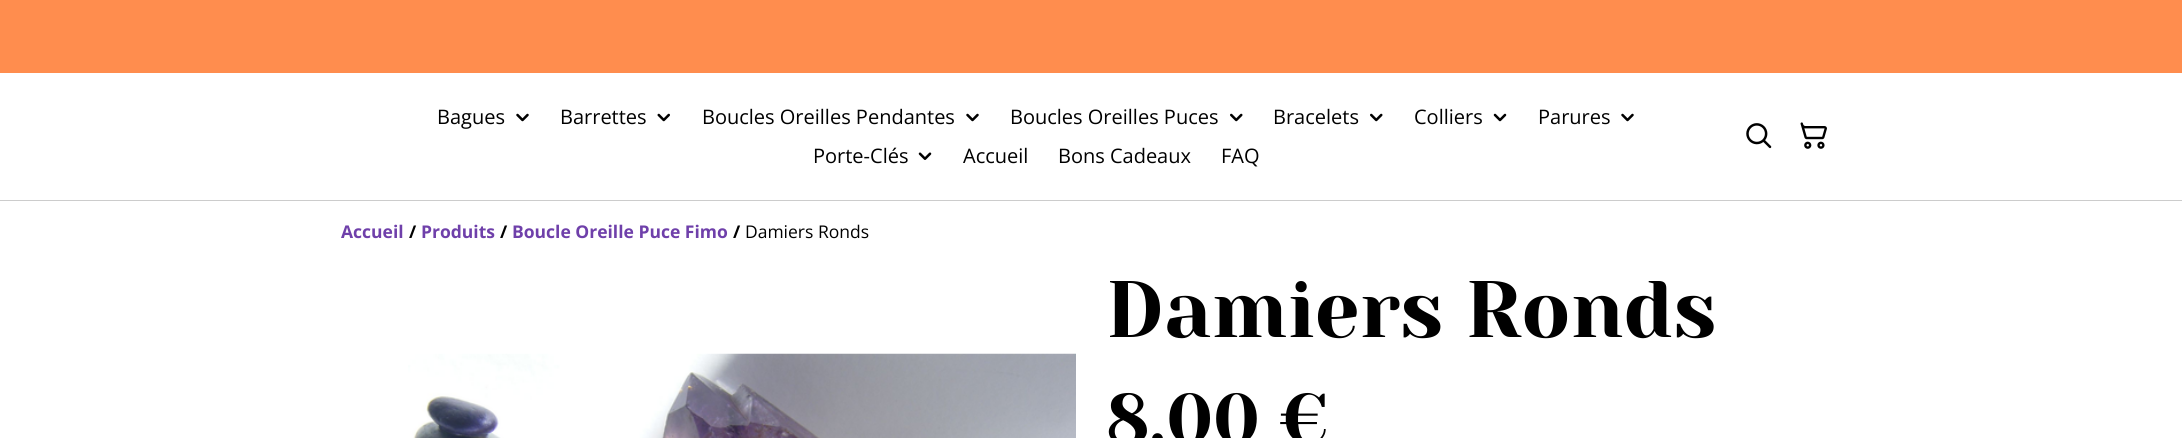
#include <cairo.h>
#include <math.h>
#include <stddef.h>

static cairo_t *c;
static void C(unsigned color){cairo_set_source_rgb(c, (color >> 16) / 255.0, (color >> 8 & 255) / 255.0, (color & 255) / 255.0);}
static void F(const char *family, double size, int italic, int bold){cairo_select_font_face(c, family, italic ? CAIRO_FONT_SLANT_ITALIC : CAIRO_FONT_SLANT_NORMAL,bold ? CAIRO_FONT_WEIGHT_BOLD : CAIRO_FONT_WEIGHT_NORMAL);cairo_set_font_size(c, size);}
static void T(double x, double y, const char *s){cairo_move_to(c, x, y);cairo_show_text(c, s);}
static void R(double x, double y, double w, double h){cairo_rectangle(c, x, y, w, h);cairo_fill(c);}
static void I(const char *path, double x, double y, double w, double h){cairo_surface_t *image = cairo_image_surface_create_from_png(path);cairo_save(c);cairo_set_source_surface(c, image, x, y);cairo_rectangle(c, x, y, w, h);cairo_fill(c);cairo_restore(c);cairo_surface_destroy(image);}
int main(void) {
cairo_surface_t *surface = cairo_image_surface_create(CAIRO_FORMAT_RGB24, 2182, 438);
c = cairo_create(surface);
cairo_font_options_t *options = cairo_font_options_create();
cairo_font_options_set_hint_metrics(options, CAIRO_HINT_METRICS_OFF);
cairo_font_options_set_hint_style(options, CAIRO_HINT_STYLE_NONE);
cairo_set_font_options(c, options);
cairo_set_miter_limit(c, 4);
C(0xffffff);
cairo_paint(c);
C(0xff8d4e);
R(0,0,2182,73);
C(0xcccccc);
R(0,200,2182,1);
F("Open Sans",20,0,0);
C(0x000000);
T(437,124,"Bagues");
I("1.png",516,113,13,9);
T(560,124,"Barrettes");
I("2.png",657,113,13,9);
T(702,124,"Boucles Oreilles Pendantes");
I("1.png",966,113,13,9);
T(1010,124,"Boucles Oreilles Puces");
I("3.png",1230,113,13,9);
T(1273,124,"Bracelets");
I("3.png",1370,113,13,9);
T(1414,124,"Colliers");
I("4.png",1493,113,14,9);
T(1538,124,"Parures");
I("1.png",1621,113,13,9);
T(813,163,"Porte-Clés");
I("5.png",918,152,14,8);
T(963,163,"Accueil");
T(1058,163,"Bons Cadeaux");
T(1221,163,"FAQ");
I("6.png",1746,123,26,26);
I("7.png",1800,122,27,27);
F("Open Sans",17.5,0,1);
C(0x6f40aa);
T(341,238,"Accueil");
C(0x000000);
T(409,238,"/");
C(0x6f40aa);
T(421,238,"Produits");
C(0x000000);
T(500,238,"/");
C(0x6f40aa);
T(512,238,"Boucle Oreille Puce Fimo");
C(0x000000);
T(733,238,"/");
F("Open Sans",17.5,0,0);
T(745,238,"Damiers Ronds");
I("8.png",408,353,668,85);
F("Yeseva One",80,0,0);
T(1106,337,"Damiers Ronds");
F("Yeseva One",70,0,0);
T(1106,443,"8,00 €");
cairo_surface_write_to_png(surface, "o.png");
cairo_font_options_destroy(options);
cairo_destroy(c);
cairo_surface_destroy(surface);
return 0;
}
